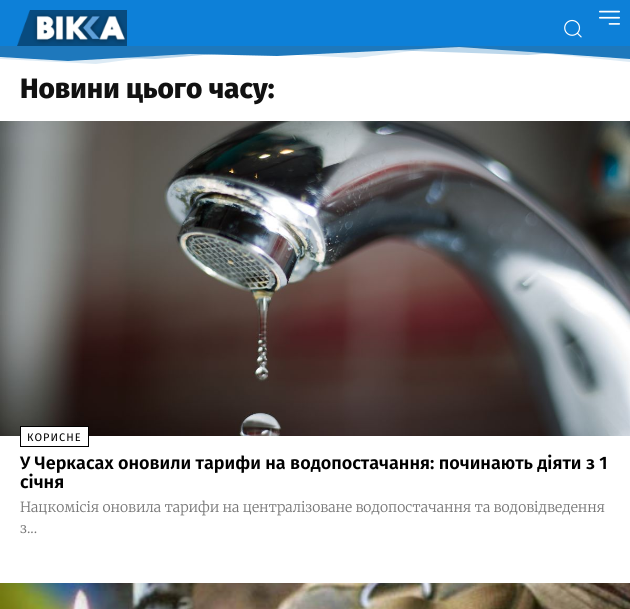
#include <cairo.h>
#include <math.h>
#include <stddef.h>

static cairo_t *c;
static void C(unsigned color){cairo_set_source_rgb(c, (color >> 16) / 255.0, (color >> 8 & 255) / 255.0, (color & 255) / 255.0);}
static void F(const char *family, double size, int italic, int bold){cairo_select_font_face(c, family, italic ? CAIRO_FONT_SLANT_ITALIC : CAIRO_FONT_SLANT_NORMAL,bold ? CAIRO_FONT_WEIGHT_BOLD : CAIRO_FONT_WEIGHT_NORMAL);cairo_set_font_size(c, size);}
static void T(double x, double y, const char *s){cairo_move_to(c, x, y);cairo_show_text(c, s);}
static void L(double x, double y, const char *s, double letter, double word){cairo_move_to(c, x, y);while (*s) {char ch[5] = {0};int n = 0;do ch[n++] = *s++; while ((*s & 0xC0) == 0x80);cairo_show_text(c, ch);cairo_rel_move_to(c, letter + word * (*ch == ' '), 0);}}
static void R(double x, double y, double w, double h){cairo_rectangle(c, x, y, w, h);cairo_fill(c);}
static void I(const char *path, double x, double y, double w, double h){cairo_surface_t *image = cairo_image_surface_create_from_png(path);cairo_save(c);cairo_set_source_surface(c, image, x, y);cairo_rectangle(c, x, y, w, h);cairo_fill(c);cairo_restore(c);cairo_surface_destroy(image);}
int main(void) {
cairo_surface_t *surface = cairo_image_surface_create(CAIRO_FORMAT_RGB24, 630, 609);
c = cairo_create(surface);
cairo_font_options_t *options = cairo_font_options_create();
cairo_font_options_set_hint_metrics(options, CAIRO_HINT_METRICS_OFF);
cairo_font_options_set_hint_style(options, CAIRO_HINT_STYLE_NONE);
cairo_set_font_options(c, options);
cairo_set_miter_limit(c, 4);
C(0xffffff);
cairo_paint(c);
C(0x0d80d8);
R(0,0,630,46);
I("1.png",17,10,110,36);
I("2.png",599,10,21,15);
I("3.png",564,19,18,19);
cairo_save(c);
cairo_rectangle(c,0,46,630,20);
cairo_clip(c);
C(0x1e78bc);
cairo_new_path(c);
cairo_move_to(c,0,41);
cairo_line_to(c,0,57);
cairo_line_to(c,68,61);
cairo_line_to(c,189,54);
cairo_line_to(c,277,56);
cairo_line_to(c,459,47);
cairo_line_to(c,630,59);
cairo_line_to(c,630,41);
cairo_close_path(c);
cairo_fill(c);
cairo_set_source_rgba(c,0.118,0.471,0.737,0.3);
cairo_new_path(c);
cairo_move_to(c,0,41);
cairo_line_to(c,0,53);
cairo_line_to(c,155,59);
cairo_line_to(c,299,47);
cairo_line_to(c,528,55);
cairo_line_to(c,630,47);
cairo_line_to(c,630,41);
cairo_close_path(c);
cairo_fill(c);
cairo_set_source_rgba(c,0.118,0.471,0.737,0.15);
cairo_new_path(c);
cairo_move_to(c,0,41);
cairo_line_to(c,0,59);
cairo_line_to(c,96,64);
cairo_line_to(c,202,50);
cairo_line_to(c,356,58);
cairo_line_to(c,459,45);
cairo_line_to(c,630,62);
cairo_line_to(c,630,41);
cairo_close_path(c);
cairo_fill(c);
cairo_restore(c);
F("Fira Sans ExtraBold",28,0,0);
C(0x111111);
T(20,98,"Новини цього часу:");
I("4.png",0,121,630,315);
C(0xffffff);
R(21,427,67,9);
cairo_rectangle(c,20.5,426.5,68,20);
C(0x000000);
cairo_set_line_width(c,1);
cairo_stroke(c);
F("Fira Sans",11,0,0);
L(27,441,"КОРИСНЕ",1,0);
F("Fira Sans SemiBold",18,0,0);
T(20,469,"У Черкасах оновили тарифи на водопостачання: починають діяти з 1");
T(20,488,"січня");
F("Merriweather Light",14,0,0);
C(0x767676);
T(20,512,"Нацкомісія оновила тарифи на централізоване водопостачання та водовідведення");
T(20,533,"з...");
I("5.png",0,583,630,26);
cairo_surface_write_to_png(surface, "o.png");
cairo_font_options_destroy(options);
cairo_destroy(c);
cairo_surface_destroy(surface);
return 0;
}
